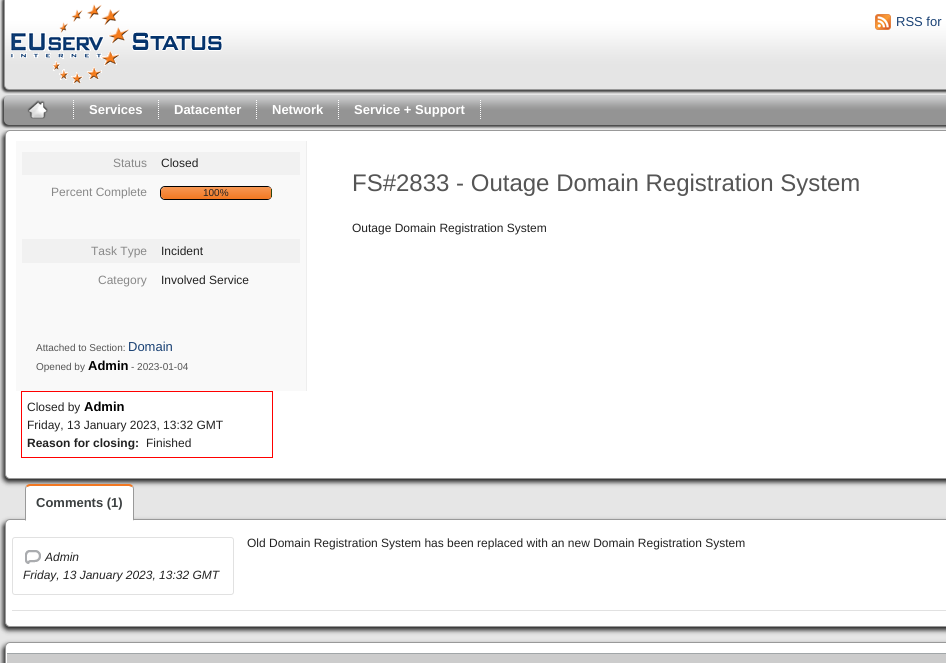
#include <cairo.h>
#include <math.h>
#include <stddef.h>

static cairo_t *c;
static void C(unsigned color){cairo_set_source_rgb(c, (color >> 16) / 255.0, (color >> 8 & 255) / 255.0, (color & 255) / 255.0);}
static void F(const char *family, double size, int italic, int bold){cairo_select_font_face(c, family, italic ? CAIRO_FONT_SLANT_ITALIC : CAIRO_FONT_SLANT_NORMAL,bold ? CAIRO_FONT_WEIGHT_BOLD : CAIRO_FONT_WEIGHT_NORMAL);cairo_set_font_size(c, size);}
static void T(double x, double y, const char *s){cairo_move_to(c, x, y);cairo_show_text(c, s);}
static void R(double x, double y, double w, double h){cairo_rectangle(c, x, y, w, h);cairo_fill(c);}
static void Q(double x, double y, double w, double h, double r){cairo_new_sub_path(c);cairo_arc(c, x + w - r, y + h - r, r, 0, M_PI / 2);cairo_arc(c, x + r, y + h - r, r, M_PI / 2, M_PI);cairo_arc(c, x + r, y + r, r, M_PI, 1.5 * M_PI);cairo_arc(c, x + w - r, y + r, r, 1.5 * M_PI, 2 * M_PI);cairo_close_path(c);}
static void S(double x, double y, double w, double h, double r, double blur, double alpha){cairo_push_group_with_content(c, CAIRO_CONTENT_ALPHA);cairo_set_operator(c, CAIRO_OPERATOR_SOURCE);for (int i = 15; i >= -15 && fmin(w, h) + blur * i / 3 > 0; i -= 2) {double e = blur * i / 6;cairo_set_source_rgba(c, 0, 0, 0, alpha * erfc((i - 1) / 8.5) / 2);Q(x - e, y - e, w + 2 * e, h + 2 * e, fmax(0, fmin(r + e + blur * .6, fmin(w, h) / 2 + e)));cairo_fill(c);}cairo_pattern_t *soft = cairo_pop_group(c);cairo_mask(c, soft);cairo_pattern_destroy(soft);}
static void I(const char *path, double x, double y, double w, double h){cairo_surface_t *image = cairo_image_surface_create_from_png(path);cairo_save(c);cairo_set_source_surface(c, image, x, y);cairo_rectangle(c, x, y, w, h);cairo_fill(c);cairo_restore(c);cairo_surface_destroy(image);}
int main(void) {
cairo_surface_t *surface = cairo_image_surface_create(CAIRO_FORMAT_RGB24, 946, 663);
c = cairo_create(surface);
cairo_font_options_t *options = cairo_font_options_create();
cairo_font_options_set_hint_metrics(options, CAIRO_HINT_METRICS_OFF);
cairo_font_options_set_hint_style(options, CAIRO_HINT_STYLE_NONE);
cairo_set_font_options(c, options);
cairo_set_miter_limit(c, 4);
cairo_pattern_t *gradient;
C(0xe6e6e6);
cairo_paint(c);
I("1.png",0,0,946,94);
I("2.png",11,4,212,80);
I("3.png",875,14,16,16);
F("Liberation Sans",13,0,0);
C(0x194174);
T(896,26,"RSS for");
C(0x1d1d1d);
S(3,133,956,349,5,2.5,1);
C(0xe5e5e5);
R(3,128,943,2);
I("4.png",0,95,946,34);
cairo_new_path(c);
cairo_move_to(c,73.5,100);
cairo_line_to(c,73.5,120);
C(0xffffff);
cairo_set_line_width(c,1);
cairo_set_dash(c,(double[]){1,1},2,0);
cairo_stroke(c);
I("5.png",27,100,21,19);
cairo_new_path(c);
cairo_move_to(c,158.5,100);
cairo_line_to(c,158.5,120);
cairo_stroke(c);
F("Liberation Sans",13,0,1);
T(89,114,"Services");
cairo_new_path(c);
cairo_move_to(c,256.5,100);
cairo_line_to(c,256.5,120);
cairo_stroke(c);
T(174,114,"Datacenter");
cairo_new_path(c);
cairo_move_to(c,338.5,100);
cairo_line_to(c,338.5,120);
cairo_stroke(c);
T(272,114,"Network");
cairo_new_path(c);
cairo_move_to(c,480.5,100);
cairo_line_to(c,480.5,120);
cairo_stroke(c);
T(354,114,"Service + Support");
Q(5.5,130.5,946,348,4.5);
cairo_fill_preserve(c);
C(0x999999);
cairo_set_dash(c,NULL,0,0);
cairo_stroke(c);
C(0xf9f9f9);
R(16,141,290,250);
C(0xeeeeee);
R(306,141,1,250);
C(0xf1f1f1);
R(22,152,278,23);
F("Liberation Sans",12,0,0);
C(0x888888);
T(113,167,"Status");
C(0x222222);
T(161,167,"Closed");
C(0x888888);
T(51,196,"Percent Complete");
Q(160.5,186.5,111,13,4.5);
C(0x000000);
cairo_stroke(c);
gradient = cairo_pattern_create_linear(216,187,216,199);
cairo_pattern_add_color_stop_rgba(gradient,0,0.965,0.592,0.329,1);
cairo_pattern_add_color_stop_rgba(gradient,1,0.949,0.471,0.133,1);
cairo_set_source(c,gradient);
cairo_pattern_destroy(gradient);
Q(161,187,111,12,4);
cairo_fill(c);
C(0x2d4713);
R(271,189,1,8);
F("Liberation Sans",10,0,0);
C(0x222222);
T(203,196,"100%");
C(0xf1f1f1);
R(22,239,278,24);
F("Liberation Sans",12,0,0);
C(0x888888);
T(91,255,"Task Type");
C(0x222222);
T(161,255,"Incident");
C(0x888888);
T(98,284,"Category");
C(0x222222);
T(161,284,"Involved Service");
F("Liberation Sans",10,0,0);
C(0x555555);
T(36,351,"Attached to Section:");
F("Liberation Sans",13,0,0);
C(0x194174);
T(128,351,"Domain");
F("Liberation Sans",10,0,0);
C(0x555555);
T(36,370,"Opened by");
F("Liberation Sans",13,0,1);
C(0x000000);
T(88,370,"Admin");
F("Liberation Sans",10,0,0);
C(0x555555);
T(131,370,"- 2023-01-04");
F("Liberation Sans",24,0,0);
T(352,191,"FS#2833 - Outage Domain Registration System");
F("Liberation Sans",12,0,0);
C(0x222222);
T(352,232,"Outage Domain Registration System");
cairo_rectangle(c,21.5,391.5,251,66);
C(0xff0000);
cairo_stroke(c);
C(0x222222);
T(27,411,"Closed by");
F("Liberation Sans",13,0,1);
C(0x000000);
T(84,411,"Admin");
F("Liberation Sans",12,0,0);
C(0x222222);
T(27,429,"Friday, 13 January 2023, 13:32 GMT");
F("Liberation Sans",12,0,1);
T(27,447,"Reason for closing:");
F("Liberation Sans",12,0,0);
T(146,447,"Finished");
C(0x1d1d1d);
S(3,522,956,108,5,2.5,1);
C(0xffffff);
Q(5.5,519.5,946,107,4.5);
cairo_fill_preserve(c);
C(0x999999);
cairo_stroke(c);
C(0xffffff);
cairo_new_path(c);
cairo_move_to(c,30,486);
cairo_line_to(c,129,486);
cairo_curve_to(c,131,486,133,487,133,489);
cairo_line_to(c,133,520);
cairo_line_to(c,26,520);
cairo_line_to(c,26,489);
cairo_curve_to(c,26,487,28,486,30,486);
cairo_close_path(c);
cairo_fill(c);
C(0xf27822);
cairo_new_path(c);
cairo_move_to(c,30,484);
cairo_curve_to(c,28,484,27,485,26,486);
cairo_line_to(c,27,487);
cairo_line_to(c,30,486);
cairo_line_to(c,129,486);
cairo_line_to(c,132,487);
cairo_line_to(c,133,486);
cairo_curve_to(c,132,485,131,484,129,484);
cairo_close_path(c);
cairo_fill(c);
C(0x999999);
cairo_new_path(c);
cairo_move_to(c,134,521);
cairo_line_to(c,134,489);
cairo_curve_to(c,134,488,133.5,486.5,133,486);
cairo_line_to(c,132.5,487.5);
cairo_curve_to(c,133,487.5,133,488.5,133,489);
cairo_line_to(c,133,520);
cairo_close_path(c);
cairo_fill(c);
C(0xffffff);
cairo_new_path(c);
cairo_move_to(c,134,521);
cairo_line_to(c,133,520);
cairo_line_to(c,26,520);
cairo_line_to(c,25,521);
cairo_close_path(c);
cairo_fill(c);
C(0x999999);
cairo_new_path(c);
cairo_move_to(c,25,521);
cairo_line_to(c,26,520);
cairo_line_to(c,26,489);
cairo_curve_to(c,26,488.5,26,487.5,26.5,487.5);
cairo_line_to(c,26,486);
cairo_curve_to(c,25.5,486.5,25,488,25,489);
cairo_close_path(c);
cairo_fill(c);
F("Liberation Sans",13,0,1);
C(0x3c4041);
T(36,507,"Comments (1)");
C(0xe1e1e1);
R(12,610,934,1);
F("Liberation Sans",12,0,0);
C(0x222222);
T(247,547,"Old Domain Registration System has been replaced with an new Domain Registration System");
Q(12.5,537.5,221,57,2.5);
C(0xe1e1e1);
cairo_stroke(c);
I("6.png",25,550,16,14);
F("Liberation Sans",12,1,0);
C(0x222222);
T(45,561,"Admin");
T(23,579,"Friday, 13 January 2023, 13:32 GMT");
C(0x1d1d1d);
S(3,645,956,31,5,2.5,1);
C(0xffffff);
Q(5.5,642.5,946,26,4.5);
cairo_fill_preserve(c);
C(0x999999);
cairo_stroke(c);
C(0xcccccc);
R(7,654,939,9);
C(0xa1a6a8);
R(7,653,939,1);
cairo_surface_write_to_png(surface, "o.png");
cairo_font_options_destroy(options);
cairo_destroy(c);
cairo_surface_destroy(surface);
return 0;
}
